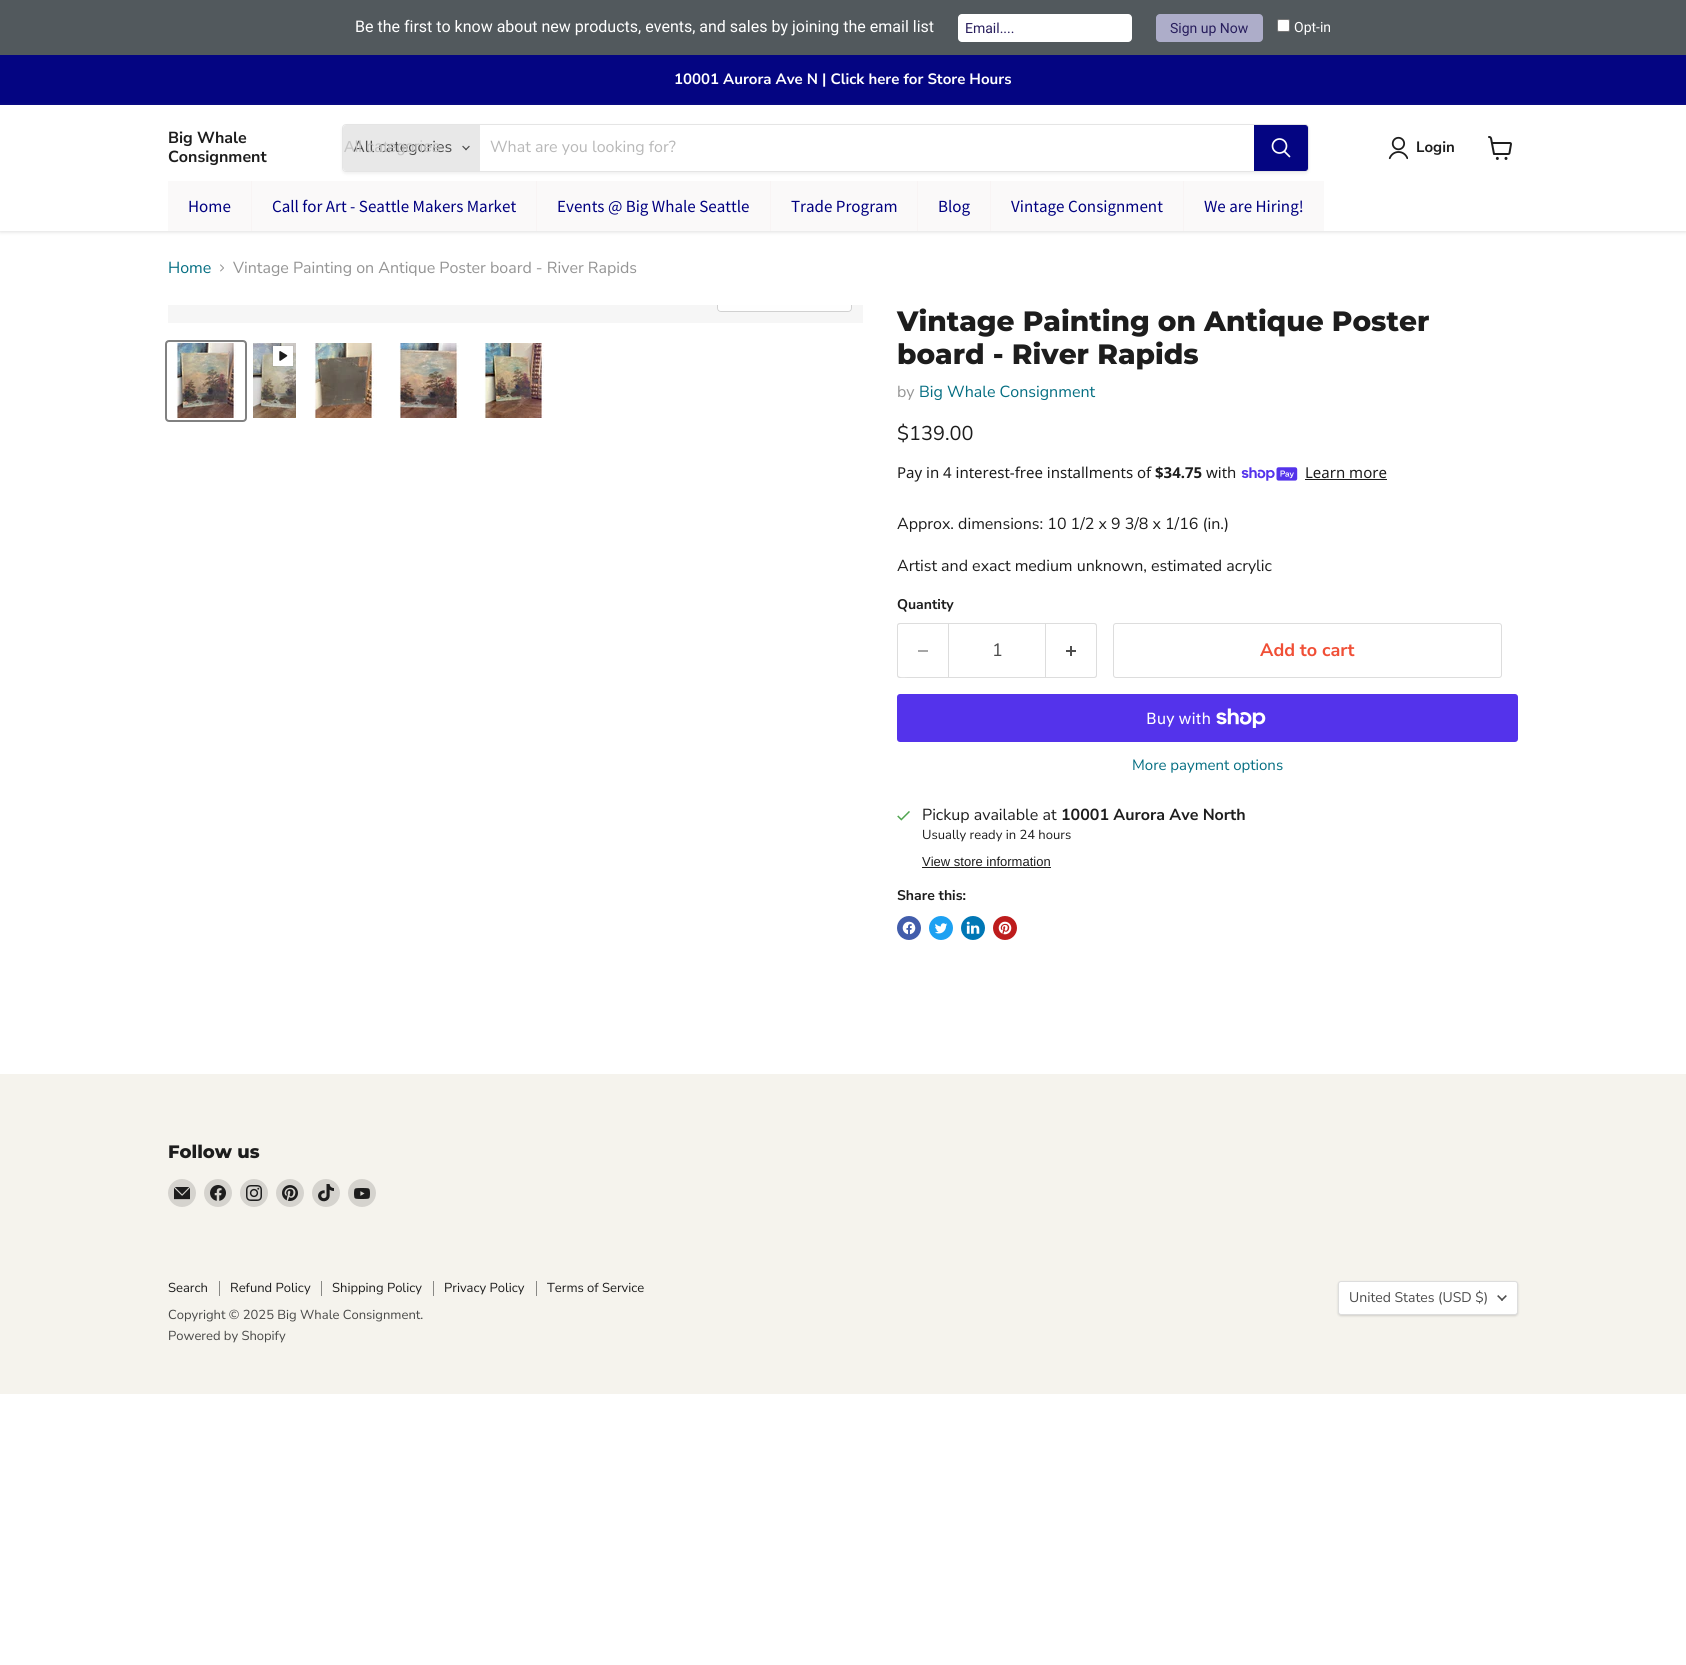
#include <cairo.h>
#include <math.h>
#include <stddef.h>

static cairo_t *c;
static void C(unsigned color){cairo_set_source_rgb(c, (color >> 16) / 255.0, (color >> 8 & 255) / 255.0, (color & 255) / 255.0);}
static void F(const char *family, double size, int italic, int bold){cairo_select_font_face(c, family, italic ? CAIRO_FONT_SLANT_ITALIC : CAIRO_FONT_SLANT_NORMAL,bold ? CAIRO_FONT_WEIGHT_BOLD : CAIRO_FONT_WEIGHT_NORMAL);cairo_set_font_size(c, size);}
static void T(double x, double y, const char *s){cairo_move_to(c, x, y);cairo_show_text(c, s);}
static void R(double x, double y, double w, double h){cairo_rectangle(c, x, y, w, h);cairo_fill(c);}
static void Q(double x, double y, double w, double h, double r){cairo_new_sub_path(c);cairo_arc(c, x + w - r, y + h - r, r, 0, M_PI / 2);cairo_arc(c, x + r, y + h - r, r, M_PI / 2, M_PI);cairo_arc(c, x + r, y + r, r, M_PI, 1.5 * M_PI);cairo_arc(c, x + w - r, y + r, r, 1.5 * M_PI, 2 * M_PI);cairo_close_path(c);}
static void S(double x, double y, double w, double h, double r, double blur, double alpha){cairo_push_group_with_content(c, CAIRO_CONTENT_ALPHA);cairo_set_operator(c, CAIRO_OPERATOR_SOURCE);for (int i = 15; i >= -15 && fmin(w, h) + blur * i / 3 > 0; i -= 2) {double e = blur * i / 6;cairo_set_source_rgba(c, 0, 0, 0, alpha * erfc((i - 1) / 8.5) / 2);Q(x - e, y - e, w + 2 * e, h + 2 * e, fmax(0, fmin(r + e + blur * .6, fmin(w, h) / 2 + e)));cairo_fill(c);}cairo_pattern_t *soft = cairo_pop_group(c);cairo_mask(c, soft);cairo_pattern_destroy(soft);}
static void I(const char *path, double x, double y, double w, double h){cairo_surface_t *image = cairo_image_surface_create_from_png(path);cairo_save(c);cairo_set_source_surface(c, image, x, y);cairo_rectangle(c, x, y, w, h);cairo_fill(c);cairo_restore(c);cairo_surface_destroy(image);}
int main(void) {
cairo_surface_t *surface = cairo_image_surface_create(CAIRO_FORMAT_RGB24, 1686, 1665);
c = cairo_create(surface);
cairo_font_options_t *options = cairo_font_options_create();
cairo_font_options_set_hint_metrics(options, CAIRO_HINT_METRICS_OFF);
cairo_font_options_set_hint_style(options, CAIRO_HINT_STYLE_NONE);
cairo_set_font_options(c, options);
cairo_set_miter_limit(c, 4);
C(0xffffff);
cairo_paint(c);
C(0x52595d);
R(0,0,1686,55);
F("Roboto",16,0,0);
C(0xffffff);
T(355,32,"Be the first to know about new products, events, and sales by joining the email list");
Q(958,14,174,28,4);
cairo_fill(c);
F("Roboto",14,0,0);
C(0x281e5d);
T(965,33,"Email....");
C(0xadadc9);
Q(1156,14,107,28,4);
cairo_fill(c);
C(0x281e5d);
T(1170,33,"Sign up Now");
C(0xffffff);
Q(1277.5,19.5,12,12,1.5);
cairo_fill_preserve(c);
C(0x767676);
cairo_set_line_width(c,1);
cairo_stroke(c);
C(0xffffff);
T(1294,32,"Opt-in");
C(0x040582);
R(0,55,1686,50);
F("Nunito Sans",15,0,1);
C(0xffffff);
T(674,84,"10001 Aurora Ave N | Click here for Store Hours");
cairo_save(c);
cairo_set_fill_rule(c,CAIRO_FILL_RULE_EVEN_ODD);
cairo_new_path(c);
cairo_move_to(c,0,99);
cairo_line_to(c,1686,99);
cairo_line_to(c,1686,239);
cairo_line_to(c,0,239);
cairo_close_path(c);
cairo_move_to(c,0,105);
cairo_line_to(c,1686,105);
cairo_line_to(c,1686,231);
cairo_line_to(c,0,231);
cairo_close_path(c);
cairo_clip(c);
C(0x808080);
S(0,106,1686,126,0,2,.25);
cairo_restore(c);
F("Nunito Sans",16,0,1);
C(0x1d1d1d);
T(168,143,"Big Whale");
T(168,162,"Consignment");
cairo_save(c);
cairo_set_fill_rule(c,CAIRO_FILL_RULE_EVEN_ODD);
cairo_new_path(c);
cairo_move_to(c,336,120);
cairo_line_to(c,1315,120);
cairo_line_to(c,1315,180);
cairo_line_to(c,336,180);
cairo_close_path(c);
cairo_move_to(c,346,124);
cairo_line_to(c,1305,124);
cairo_curve_to(c,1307,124,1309,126,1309,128);
cairo_line_to(c,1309,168);
cairo_curve_to(c,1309,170,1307,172,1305,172);
cairo_line_to(c,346,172);
cairo_curve_to(c,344,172,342,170,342,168);
cairo_line_to(c,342,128);
cairo_curve_to(c,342,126,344,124,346,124);
cairo_close_path(c);
cairo_clip(c);
C(0x808080);
S(342,126,967,48,4,1.5,.11);
cairo_restore(c);
Q(342.5,124.5,966,47,3.5);
cairo_set_source_rgba(c,0.502,0.502,0.502,0.2);
cairo_stroke(c);
C(0xe8e8e8);
cairo_new_path(c);
cairo_move_to(c,346,125);
cairo_line_to(c,480,125);
cairo_line_to(c,480,171);
cairo_line_to(c,346,171);
cairo_curve_to(c,344.5,171,343,169.5,343,168);
cairo_line_to(c,343,128);
cairo_curve_to(c,343,126.5,344.5,125,346,125);
cairo_close_path(c);
cairo_fill(c);
F("Nunito Sans",16,0,0);
C(0x4d4d4d);
T(353,152,"All categories");
F("Liberation Sans",16,0,0);
C(0xc4c4c4);
T(344,152,"All categories");
I("1.png",462,145,8,6);
F("Nunito Sans",16,0,0);
C(0xb8b8b8);
T(490,152,"What are you looking for?");
C(0x040582);
cairo_new_path(c);
cairo_move_to(c,1254.5,125.5);
cairo_line_to(c,1305,125.5);
cairo_curve_to(c,1306.5,125.5,1307.5,126.5,1307.5,128);
cairo_line_to(c,1307.5,168);
cairo_curve_to(c,1307.5,169.5,1306.5,170.5,1305,170.5);
cairo_line_to(c,1254.5,170.5);
cairo_close_path(c);
cairo_fill_preserve(c);
cairo_stroke(c);
cairo_new_path(c);
cairo_move_to(c,1289.5,156.5);
cairo_line_to(c,1284.5,151.5);
C(0xffffff);
cairo_set_line_width(c,1.7);
cairo_set_line_cap(c,CAIRO_LINE_CAP_ROUND);
cairo_stroke(c);
cairo_arc(c,1279.5,146,7,0,2 * M_PI);
cairo_set_line_cap(c,CAIRO_LINE_CAP_BUTT);
cairo_stroke(c);
I("2.png",1388,136,20,24);
F("Nunito Sans",15,0,1);
C(0x1d1d1d);
T(1416,152,"Login");
I("3.png",1488,136,24,24);
C(0xfaf9f9);
R(168,181,1156,50);
F("Source Sans Pro",17,0,0);
C(0x000080);
T(188,212,"Home");
C(0xf8f4f4);
R(251,181,1,50);
C(0x000080);
T(272,212,"Call for Art - Seattle Makers Market");
C(0xf8f4f4);
R(536,181,1,50);
C(0x000080);
T(557,212,"Events @ Big Whale Seattle");
C(0xf8f4f4);
R(770,181,1,50);
C(0x000080);
T(791,212,"Trade Program");
C(0xf8f4f4);
R(917,181,1,50);
C(0x000080);
T(938,212,"Blog");
C(0xf8f4f4);
R(990,181,1,50);
C(0x000080);
T(1011,212,"Vintage Consignment");
C(0xf8f4f4);
R(1183,181,1,50);
C(0x000080);
T(1204,212,"We are Hiring!");
F("Nunito Sans",16,0,0);
C(0x046e82);
T(168,273,"Home");
I("4.png",220,264,4,8);
C(0x949494);
T(233,273,"Vintage Painting on Antique Poster board - River Rapids");
C(0xf6f6f6);
R(168,305,695,18);
cairo_save(c);
cairo_rectangle(c,168,305,695,18);
cairo_clip(c);
Q(717.5,282.5,134,29,3.5);
C(0xd1d1d1);
cairo_set_line_width(c,1);
cairo_stroke(c);
cairo_restore(c);
cairo_set_source_rgba(c,1,1,1,0.9);
cairo_new_path(c);
cairo_move_to(c,718,305);
cairo_line_to(c,851,305);
cairo_line_to(c,851,308);
cairo_curve_to(c,851,309.5,849.5,311,848,311);
cairo_line_to(c,721,311);
cairo_curve_to(c,719.5,311,718,309.5,718,308);
cairo_close_path(c);
cairo_fill(c);
Q(166,341,80,80,3);
C(0x818181);
cairo_set_line_width(c,2);
cairo_stroke(c);
I("5.png",176,343,60,75);
I("6.png",253,343,43,75);
cairo_rectangle(c,272.5,345.5,21,21);
cairo_set_source_rgba(c,0.114,0.114,0.114,0.05);
cairo_set_line_width(c,1);
cairo_stroke(c);
C(0xffffff);
R(273,346,20,20);
I("7.png",279,351,9,10);
I("8.png",314,343,63,75);
I("9.png",399,343,60,75);
I("10.png",484,343,60,75);
F("Montserrat ExtraBold",28,0,0);
C(0x1d1d1d);
T(897,331,"Vintage Painting on Antique Poster");
T(897,364,"board - River Rapids");
F("Nunito Sans",16,0,0);
C(0x949494);
T(897,397,"by");
C(0x046e82);
T(919,397,"Big Whale Consignment");
F("Nunito Sans",20,0,0);
C(0x1d1d1d);
T(897,440,"$139.00");
F("Noto Sans",15,0,0);
T(897,478,"Pay in 4 interest-free installments of");
F("Noto Sans",15,0,1);
T(1155,478,"$34.75");
F("Noto Sans",15,0,0);
T(1206,478,"with");
I("11.png",1241,467,57,14);
T(1305,478,"Learn more");
R(1305,479,82,1);
F("Nunito Sans",16,0,0);
T(897,529,"Approx. dimensions: 10 1/2 x 9 3/8 x 1/16 (in.)");
T(897,571,"Artist and exact medium unknown, estimated acrylic");
F("Nunito Sans",14,0,1);
T(897,609,"Quantity");
C(0xdddddd);
cairo_set_fill_rule(c,CAIRO_FILL_RULE_EVEN_ODD);
cairo_new_path(c);
cairo_move_to(c,900,623);
cairo_line_to(c,948,623);
cairo_line_to(c,948,678);
cairo_line_to(c,900,678);
cairo_curve_to(c,898,678,897,677,897,675);
cairo_line_to(c,897,626);
cairo_curve_to(c,897,624,898,623,900,623);
cairo_close_path(c);
cairo_move_to(c,900,624);
cairo_line_to(c,948,624);
cairo_line_to(c,948,677);
cairo_line_to(c,908,677);
cairo_curve_to(c,904,677,898,678,898,675);
cairo_line_to(c,898,625);
cairo_close_path(c);
cairo_fill(c);
C(0xa6a6a6);
R(918,650,10,2);
cairo_rectangle(c,948.5,623.5,97,54);
C(0xdddddd);
cairo_stroke(c);
F("Nunito Sans",18,0,0);
C(0x4d4d4d);
T(992,656,"1");
C(0xdddddd);
cairo_new_path(c);
cairo_move_to(c,1046,623);
cairo_line_to(c,1094,623);
cairo_curve_to(c,1096,623,1097,624,1097,626);
cairo_line_to(c,1097,675);
cairo_curve_to(c,1097,677,1096,678,1094,678);
cairo_line_to(c,1046,678);
cairo_close_path(c);
cairo_move_to(c,1046,624);
cairo_line_to(c,1094,624);
cairo_curve_to(c,1095,624,1096,625,1096,626);
cairo_line_to(c,1096,675);
cairo_curve_to(c,1096,676,1095,677,1094,677);
cairo_line_to(c,1046,677);
cairo_close_path(c);
cairo_fill(c);
I("12.png",1066,646,10,10);
Q(1113.5,623.5,388,54,2.5);
cairo_stroke(c);
F("Nunito Sans",18,0,1);
C(0xf04f36);
T(1260,656,"Add to cart");
C(0x5433eb);
Q(897,694,621,48,3);
cairo_fill(c);
F("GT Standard",16,0,0);
C(0xffffff);
T(1146,724,"Buy with");
I("13.png",1216,708,50,20);
F("Nunito Sans",15,0,0);
C(0x046e82);
T(1132,770,"More payment options");
I("14.png",897,811,13,10);
F("Nunito Sans",16,0,0);
C(0x1d1d1d);
T(922,820,"Pickup available at");
F("Nunito Sans",16,0,1);
T(1061,820,"10001 Aurora Ave North");
F("Nunito Sans",13,0,0);
T(922,839,"Usually ready in 24 hours");
F("Liberation Sans",13,0,0);
T(922,866,"View store information");
R(922,867,129,1);
F("Nunito Sans",14,0,1);
T(897,900,"Share this:");
C(0x425dab);
cairo_new_path(c);
cairo_arc(c,909,928,12,0,2 * M_PI);
cairo_fill(c);
I("15.png",902,921,14,14);
C(0x1da1f2);
cairo_arc(c,941,928,12,0,2 * M_PI);
cairo_fill(c);
I("16.png",935,923,13,11);
C(0x0077b5);
cairo_arc(c,973,928,12,0,2 * M_PI);
cairo_fill(c);
I("17.png",966,921,14,13);
C(0xbd1c1c);
cairo_arc(c,1005,928,12,0,2 * M_PI);
cairo_fill(c);
I("18.png",998,921,14,14);
C(0xf5f3ed);
R(0,1074,1686,320);
F("Montserrat ExtraBold",18,0,0);
C(0x1d1d1d);
T(168,1158,"Follow us");
C(0xd5d3ce);
cairo_new_path(c);
cairo_arc(c,182,1193,14,0,2 * M_PI);
cairo_fill(c);
I("19.png",174,1187,16,13);
cairo_arc(c,218,1193,14,0,2 * M_PI);
cairo_fill(c);
I("20.png",210,1185,16,16);
cairo_arc(c,254,1193,14,0,2 * M_PI);
cairo_fill(c);
I("21.png",246,1185,16,16);
cairo_arc(c,290,1193,14,0,2 * M_PI);
cairo_fill(c);
I("22.png",282,1185,16,16);
cairo_arc(c,326,1193,14,0,2 * M_PI);
cairo_fill(c);
I("23.png",318,1184,16,18);
cairo_arc(c,362,1193,14,0,2 * M_PI);
cairo_fill(c);
I("24.png",354,1188,16,11);
C(0x898885);
R(219,1281,1,15);
F("Nunito Sans",13,0,0);
C(0x1d1d1d);
T(168,1292,"Search");
C(0x898885);
R(321,1281,1,15);
C(0x1d1d1d);
T(230,1292,"Refund Policy");
C(0x898885);
R(433,1281,1,15);
C(0x1d1d1d);
T(332,1292,"Shipping Policy");
C(0x898885);
R(536,1281,1,15);
C(0x1d1d1d);
T(444,1292,"Privacy Policy");
T(547,1292,"Terms of Service");
C(0x484847);
T(168,1319,"Copyright © 2025 Big Whale Consignment.");
T(168,1340,"Powered by Shopify");
C(0x000000);
S(1338,1282,180,34,3,1,.15);
C(0xffffff);
Q(1338.5,1281.5,179,33,2.5);
cairo_fill_preserve(c);
C(0xdddddd);
cairo_stroke(c);
F("Nunito Sans",14,0,0);
C(0x4d4d4d);
T(1349,1302,"United States (USD $)");
I("25.png",1497,1295,10,6);
cairo_surface_write_to_png(surface, "o.png");
cairo_font_options_destroy(options);
cairo_destroy(c);
cairo_surface_destroy(surface);
return 0;
}
